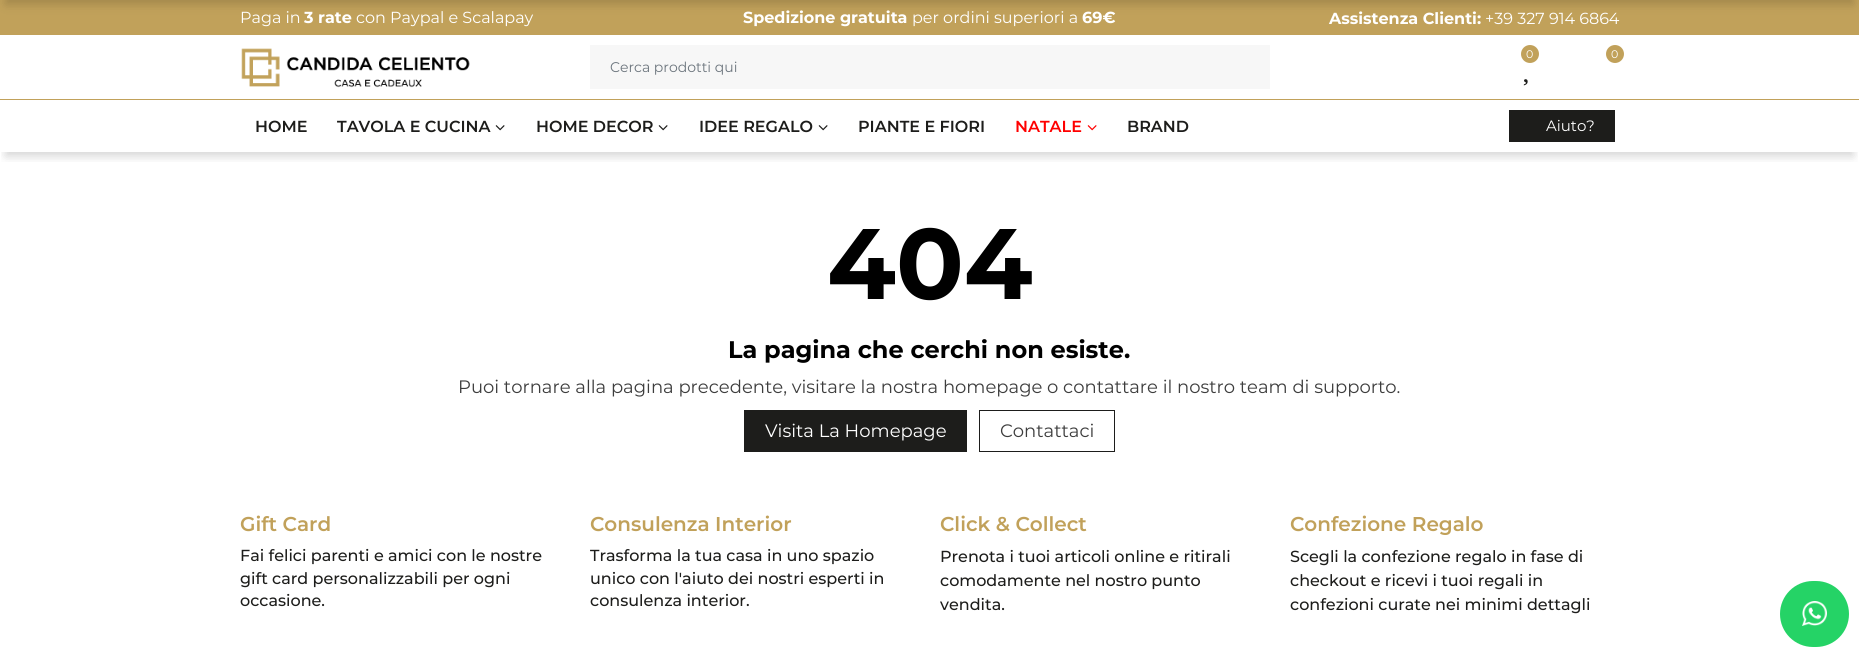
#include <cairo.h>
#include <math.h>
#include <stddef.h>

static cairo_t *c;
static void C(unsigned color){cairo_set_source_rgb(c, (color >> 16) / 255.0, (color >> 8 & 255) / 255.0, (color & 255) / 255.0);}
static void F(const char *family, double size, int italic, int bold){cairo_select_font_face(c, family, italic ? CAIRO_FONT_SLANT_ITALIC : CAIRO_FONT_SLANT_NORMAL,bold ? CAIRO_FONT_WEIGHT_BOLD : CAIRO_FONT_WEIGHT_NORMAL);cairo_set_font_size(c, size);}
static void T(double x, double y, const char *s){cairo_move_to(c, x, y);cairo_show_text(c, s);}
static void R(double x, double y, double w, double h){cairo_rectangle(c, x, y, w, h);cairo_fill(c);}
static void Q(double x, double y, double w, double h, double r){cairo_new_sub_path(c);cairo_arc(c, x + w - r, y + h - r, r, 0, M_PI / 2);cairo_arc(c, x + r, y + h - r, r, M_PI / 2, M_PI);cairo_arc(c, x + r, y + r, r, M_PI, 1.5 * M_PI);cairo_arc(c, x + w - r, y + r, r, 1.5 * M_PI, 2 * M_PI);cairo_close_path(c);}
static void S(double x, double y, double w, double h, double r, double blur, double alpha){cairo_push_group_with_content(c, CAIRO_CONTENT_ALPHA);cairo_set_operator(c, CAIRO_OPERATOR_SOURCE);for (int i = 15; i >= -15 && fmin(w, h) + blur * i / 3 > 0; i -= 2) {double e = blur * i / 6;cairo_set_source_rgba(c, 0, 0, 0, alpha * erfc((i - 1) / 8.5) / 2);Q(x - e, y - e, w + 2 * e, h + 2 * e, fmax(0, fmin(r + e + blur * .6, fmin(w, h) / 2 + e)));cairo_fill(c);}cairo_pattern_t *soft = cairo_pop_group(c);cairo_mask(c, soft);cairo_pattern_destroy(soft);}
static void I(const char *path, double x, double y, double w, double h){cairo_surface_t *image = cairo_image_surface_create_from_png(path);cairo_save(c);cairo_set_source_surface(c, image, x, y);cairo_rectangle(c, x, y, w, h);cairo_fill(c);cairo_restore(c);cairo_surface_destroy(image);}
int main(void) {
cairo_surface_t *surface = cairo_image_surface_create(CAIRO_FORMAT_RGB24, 1859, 667);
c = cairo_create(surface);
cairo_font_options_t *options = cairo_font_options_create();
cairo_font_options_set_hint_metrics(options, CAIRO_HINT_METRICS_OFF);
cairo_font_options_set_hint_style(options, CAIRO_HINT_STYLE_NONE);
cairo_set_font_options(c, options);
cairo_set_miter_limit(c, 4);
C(0xffffff);
cairo_paint(c);
C(0xc1a15a);
R(0,0,1859,35);
C(0x000000);
S(6,-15,1847,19,0,5,.17);
F("Montserrat",16,0,0);
C(0xffffff);
T(240,23,"Paga in");
F("Montserrat",16,0,1);
T(304,23,"3 rate");
F("Montserrat",16,0,0);
T(356,23,"con Paypal e Scalapay");
F("Montserrat",16,0,1);
T(743,23,"Spedizione gratuita");
F("Montserrat",16,0,0);
T(912,23,"per ordini superiori a");
F("Montserrat",16,0,1);
T(1082,23,"69€");
T(1329,24,"Assistenza Clienti:");
F("Montserrat",16,0,0);
T(1485,24,"+39 327 914 6864");
I("1.png",241,48,229,40);
C(0xc1a15a);
cairo_arc(c,1530,54,9,0,2 * M_PI);
cairo_fill(c);
F("Montserrat",11,0,0);
C(0xffffff);
T(1526,58,"0");
I("2.png",1523,79,5,7);
C(0xc1a15a);
cairo_arc(c,1615,54,9,0,2 * M_PI);
cairo_fill(c);
C(0xffffff);
T(1611,58,"0");
C(0xf7f7f7);
R(590,45,680,44);
F("Montserrat",14,0,0);
C(0x6c757d);
T(610,72,"Cerca prodotti qui");
cairo_save(c);
cairo_rectangle(c,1,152,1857,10);
cairo_clip(c);
C(0x000000);
S(6,115,1847,41,0,5,.17);
cairo_restore(c);
C(0xc1a15a);
R(0,99,1859,1);
F("Montserrat SemiBold",16,0,0);
C(0x1d1d1b);
T(255,132,"HOME");
T(337,132,"TAVOLA E CUCINA");
I("3.png",495,125,10,6);
T(536,132,"HOME DECOR");
I("3.png",658,125,10,6);
T(699,132,"IDEE REGALO");
I("3.png",818,125,10,6);
T(858,132,"PIANTE E FIORI");
C(0xff0000);
T(1015,132,"NATALE");
I("4.png",1087,125,10,6);
C(0x1d1d1b);
T(1127,132,"BRAND");
R(1509,110,106,32);
F("Montserrat",15,0,0);
C(0xffffff);
T(1546,131,"Aiuto?");
F("Montserrat",100,0,1);
C(0x000000);
T(827,299,"404");
F("Montserrat",24,0,1);
T(728,358,"La pagina che cerchi non esiste.");
F("Montserrat",18,0,0);
C(0x3d3d3d);
T(458,393,"Puoi tornare alla pagina precedente, visitare la nostra homepage o contattare il nostro team di supporto.");
C(0x1d1d1b);
R(744,410,223,42);
C(0xffffff);
T(765,437,"Visita La Homepage");
cairo_rectangle(c,979.5,410.5,135,41);
C(0x1d1d1b);
cairo_set_line_width(c,1);
cairo_stroke(c);
C(0x3d3d3d);
T(1000,437,"Contattaci");
F("Montserrat SemiBold",20,0,0);
C(0xc1a15a);
T(240,531,"Gift Card");
F("Montserrat Medium",16,0,0);
C(0x1d1d1b);
T(240,561,"Fai felici parenti e amici con le nostre");
T(240,584,"gift card personalizzabili per ogni");
T(240,606,"occasione.");
F("Montserrat SemiBold",20,0,0);
C(0xc1a15a);
T(590,531,"Consulenza Interior");
F("Montserrat Medium",16,0,0);
C(0x1d1d1b);
T(590,561,"Trasforma la tua casa in uno spazio");
T(590,584,"unico con l'aiuto dei nostri esperti in");
T(590,606,"consulenza interior.");
F("Montserrat SemiBold",20,0,0);
C(0xc1a15a);
T(940,531,"Click & Collect");
F("Montserrat Medium",16,0,0);
C(0x1d1d1b);
T(940,562,"Prenota i tuoi articoli online e ritirali");
T(940,586,"comodamente nel nostro punto");
T(940,610,"vendita.");
F("Montserrat SemiBold",20,0,0);
C(0xc1a15a);
T(1290,531,"Confezione Regalo");
F("Montserrat Medium",16,0,0);
C(0x1d1d1b);
T(1290,562,"Scegli la confezione regalo in fase di");
T(1290,586,"checkout e ricevi i tuoi regali in");
T(1290,610,"confezioni curate nei minimi dettagli");
C(0x25d366);
Q(1780,581,69,66,33);
cairo_fill(c);
I("5.png",1802,601,25,25);
cairo_surface_write_to_png(surface, "o.png");
cairo_font_options_destroy(options);
cairo_destroy(c);
cairo_surface_destroy(surface);
return 0;
}
